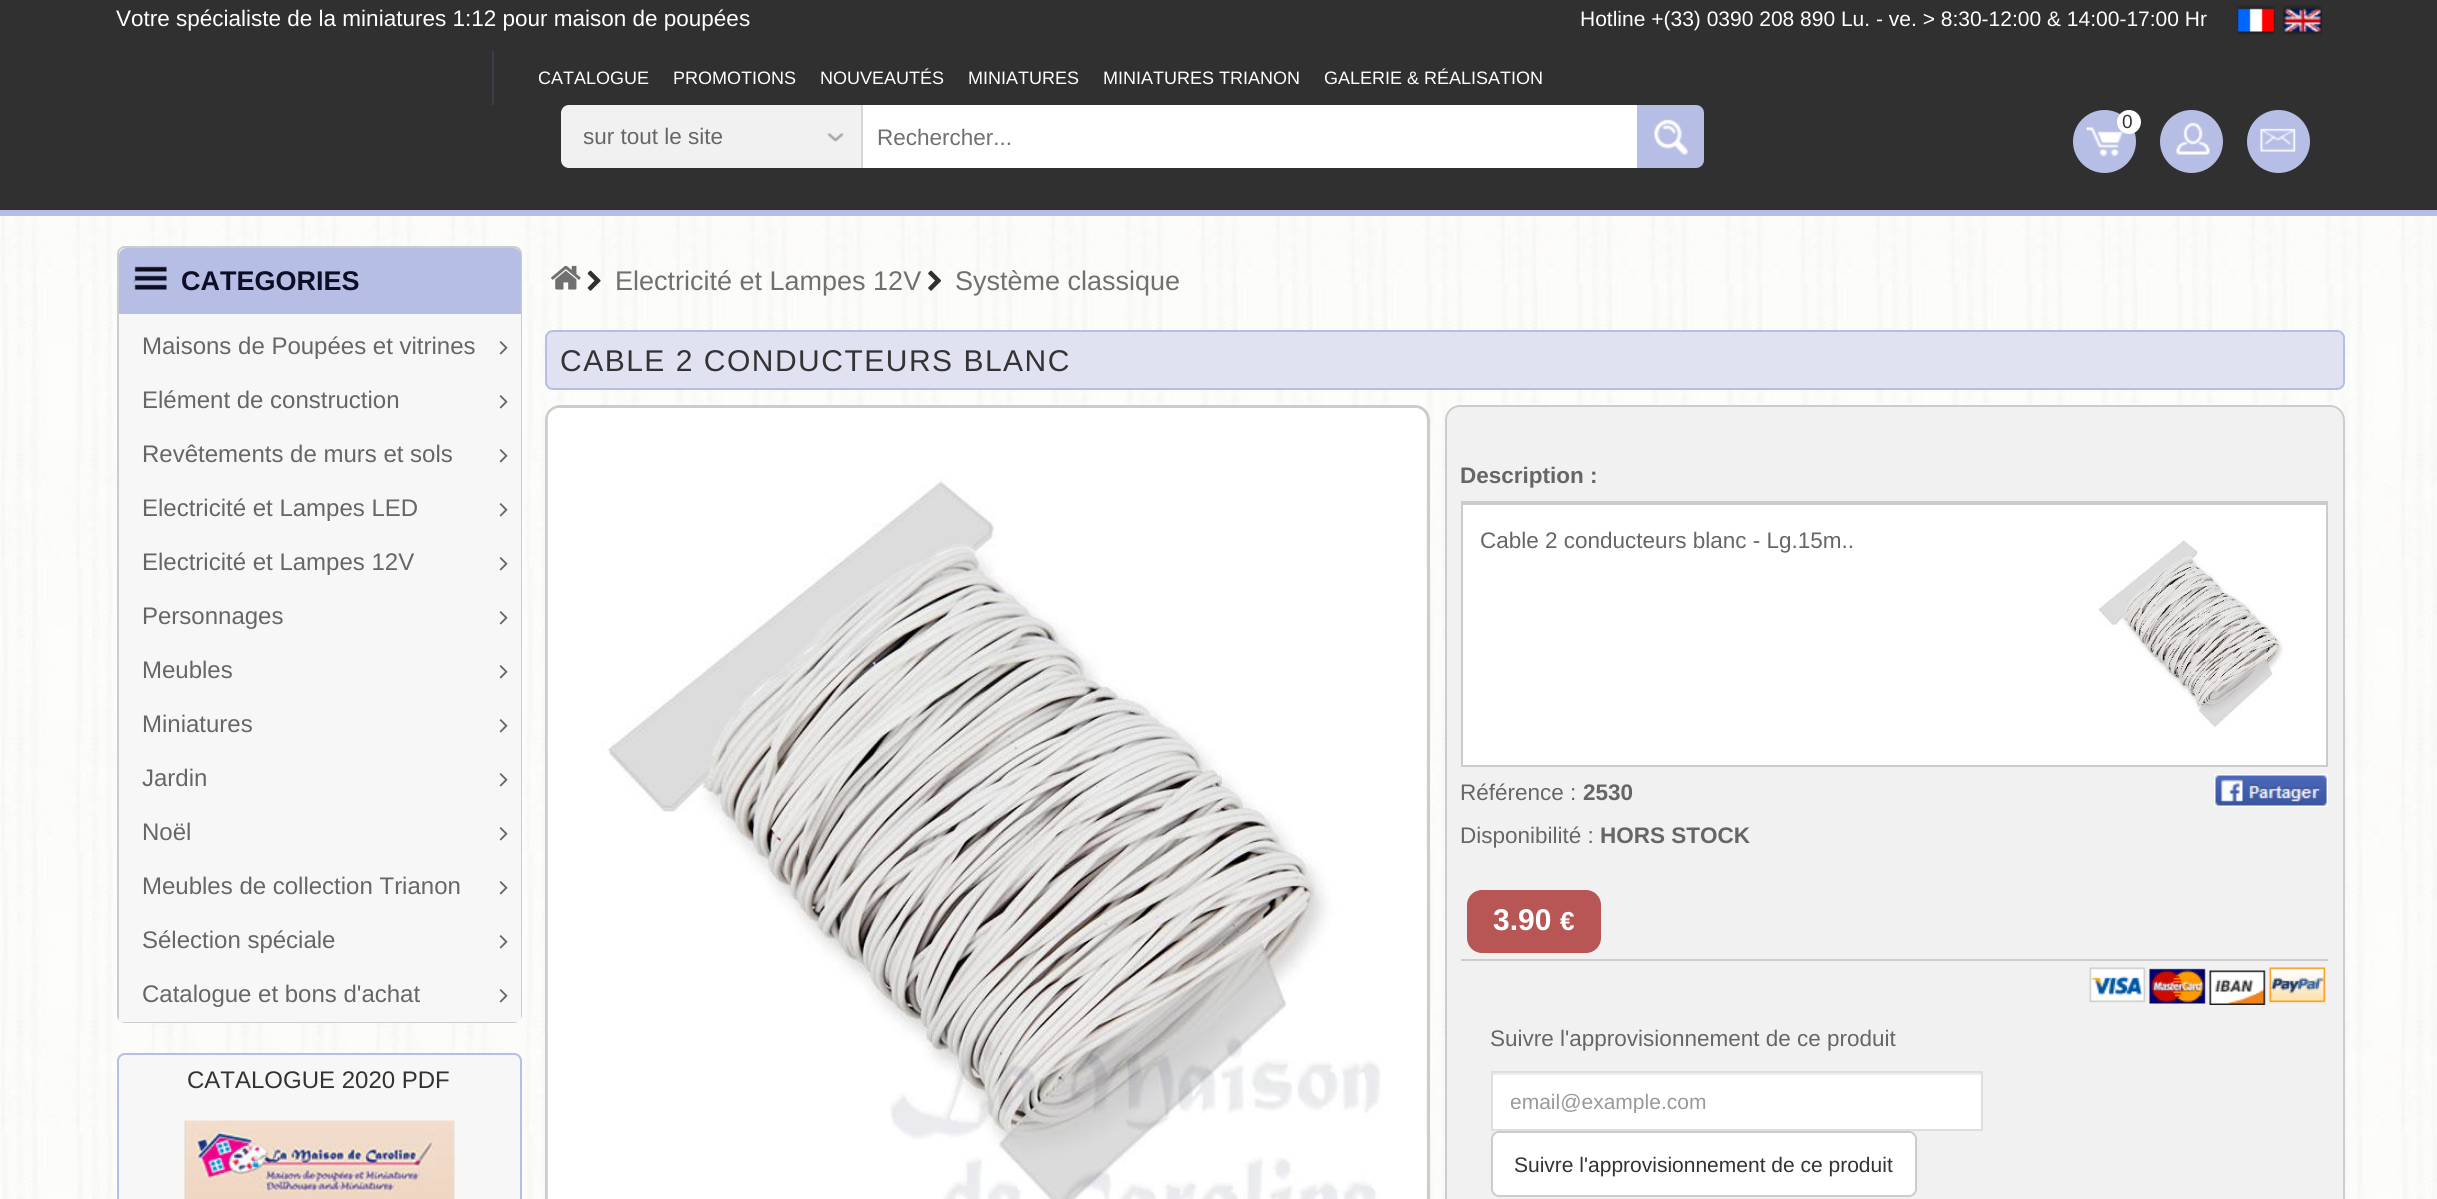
#include <cairo.h>
#include <math.h>
#include <stddef.h>

static cairo_t *c;
static void C(unsigned color){cairo_set_source_rgb(c, (color >> 16) / 255.0, (color >> 8 & 255) / 255.0, (color & 255) / 255.0);}
static void F(const char *family, double size, int italic, int bold){cairo_select_font_face(c, family, italic ? CAIRO_FONT_SLANT_ITALIC : CAIRO_FONT_SLANT_NORMAL,bold ? CAIRO_FONT_WEIGHT_BOLD : CAIRO_FONT_WEIGHT_NORMAL);cairo_set_font_size(c, size);}
static void T(double x, double y, const char *s){cairo_move_to(c, x, y);cairo_show_text(c, s);}
static void L(double x, double y, const char *s, double letter, double word){cairo_move_to(c, x, y);while (*s) {char ch[5] = {0};int n = 0;do ch[n++] = *s++; while ((*s & 0xC0) == 0x80);cairo_show_text(c, ch);cairo_rel_move_to(c, letter + word * (*ch == ' '), 0);}}
static void R(double x, double y, double w, double h){cairo_rectangle(c, x, y, w, h);cairo_fill(c);}
static void Q(double x, double y, double w, double h, double r){cairo_new_sub_path(c);cairo_arc(c, x + w - r, y + h - r, r, 0, M_PI / 2);cairo_arc(c, x + r, y + h - r, r, M_PI / 2, M_PI);cairo_arc(c, x + r, y + r, r, M_PI, 1.5 * M_PI);cairo_arc(c, x + w - r, y + r, r, 1.5 * M_PI, 2 * M_PI);cairo_close_path(c);}
static void I(const char *path, double x, double y, double w, double h){cairo_surface_t *image = cairo_image_surface_create_from_png(path);cairo_save(c);cairo_set_source_surface(c, image, x, y);cairo_rectangle(c, x, y, w, h);cairo_fill(c);cairo_restore(c);cairo_surface_destroy(image);}
int main(void) {
cairo_surface_t *surface = cairo_image_surface_create(CAIRO_FORMAT_RGB24, 2437, 1199);
c = cairo_create(surface);
cairo_font_options_t *options = cairo_font_options_create();
cairo_font_options_set_hint_metrics(options, CAIRO_HINT_METRICS_OFF);
cairo_font_options_set_hint_style(options, CAIRO_HINT_STYLE_NONE);
cairo_set_font_options(c, options);
cairo_set_miter_limit(c, 4);
C(0xffffff);
cairo_paint(c);
I("1.png",0,216,2437,983);
C(0x303030);
R(0,0,2437,210);
C(0xb7bee5);
R(0,210,2437,6);
F("Liberation Sans",22.5,0,0);
C(0xffffff);
T(116,26,"Votre spécialiste de la miniatures 1:12 pour maison de poupées");
F("Liberation Sans",21,0,0);
T(1580,26,"Hotline +(33) 0390 208 890 Lu. - ve. > 8:30-12:00 & 14:00-17:00 Hr");
I("2.png",2237,5,38,30);
I("3.png",2283,5,39,30);
C(0x3c3c4a);
R(492,51,2,54);
cairo_save(c);
cairo_rectangle(c,539,51,123,54);
cairo_clip(c);
F("Liberation Sans",18,0,0);
C(0xffffff);
T(538,84,"CATALOGUE");
cairo_restore(c);
F("Liberation Sans",18,0,0);
C(0xffffff);
T(673,84,"PROMOTIONS");
T(820,84,"NOUVEAUTÉS");
T(968,84,"MINIATURES");
T(1103,84,"MINIATURES TRIANON");
T(1324,84,"GALERIE & RÉALISATION");
C(0xb7bee5);
cairo_new_path(c);
cairo_arc(c,2104.5,141.5,31.5,0,2 * M_PI);
cairo_fill(c);
I("4.png",2086,109,37,48);
C(0xffffff);
cairo_arc(c,2129,122,12,0,2 * M_PI);
cairo_fill(c);
F("Liberation Sans",19,0,0);
C(0x333333);
T(2122,128,"0");
C(0xb7bee5);
cairo_new_path(c);
cairo_arc(c,2191.5,141.5,31.5,0,2 * M_PI);
cairo_fill(c);
I("5.png",2176,122,34,33);
cairo_arc(c,2278.5,141.5,31.5,0,2 * M_PI);
cairo_fill(c);
I("6.png",2260,128,36,24);
C(0xd7d7d7);
R(861,105,2,63);
C(0xf1f1f1);
cairo_new_path(c);
cairo_move_to(c,569,105);
cairo_line_to(c,861,105);
cairo_line_to(c,861,168);
cairo_line_to(c,569,168);
cairo_curve_to(c,564.5,168,561,164.5,561,160);
cairo_line_to(c,561,113);
cairo_curve_to(c,561,108.5,564.5,105,569,105);
cairo_close_path(c);
cairo_fill(c);
I("7.png",827,133,17,9);
cairo_save(c);
cairo_rectangle(c,584,123,241,27);
cairo_clip(c);
F("Liberation Sans",22.5,0,0);
C(0x666666);
T(583,144,"sur tout le site");
cairo_restore(c);
C(0xffffff);
R(863,105,774,63);
F("Liberation Sans",22.5,0,0);
C(0x707070);
T(877,145,"Rechercher...");
C(0xb7bee5);
cairo_new_path(c);
cairo_move_to(c,1637,105);
cairo_line_to(c,1696,105);
cairo_curve_to(c,1700.5,105,1704,108.5,1704,113);
cairo_line_to(c,1704,160);
cairo_curve_to(c,1704,164.5,1700.5,168,1696,168);
cairo_line_to(c,1637,168);
cairo_close_path(c);
cairo_fill(c);
I("8.png",1654,119,34,36);
Q(118,247,403,775,7);
C(0xcccccc);
cairo_stroke(c);
C(0xb7bee5);
cairo_new_path(c);
cairo_move_to(c,127,248);
cairo_line_to(c,513,248);
cairo_curve_to(c,517.5,248,521,251.5,521,256);
cairo_line_to(c,521,314);
cairo_line_to(c,119,314);
cairo_line_to(c,119,256);
cairo_curve_to(c,119,251.5,122.5,248,127,248);
cairo_close_path(c);
cairo_fill(c);
I("9.png",133,266,34,24);
F("Liberation Sans",27,0,1);
C(0x0d0d25);
T(181,290,"CATEGORIES");
C(0xf7f7f7);
R(119,314,402,708);
F("Liberation Sans",24,0,0);
C(0x666666);
T(142,354,"Maisons de Poupées et vitrines");
I("10.png",499,341,9,14);
T(142,408,"Elément de construction");
I("10.png",499,395,9,14);
T(142,462,"Revêtements de murs et sols");
I("10.png",499,449,9,14);
T(142,516,"Electricité et Lampes LED");
I("10.png",499,503,9,14);
T(142,570,"Electricité et Lampes 12V");
I("10.png",499,557,9,14);
T(142,624,"Personnages");
I("10.png",499,611,9,14);
T(142,678,"Meubles");
I("10.png",499,665,9,14);
T(142,732,"Miniatures");
I("10.png",499,719,9,14);
T(142,786,"Jardin");
I("10.png",499,773,9,14);
T(142,840,"Noël");
I("10.png",499,827,9,14);
T(142,894,"Meubles de collection Trianon");
I("10.png",499,881,9,14);
T(142,948,"Sélection spéciale");
I("10.png",499,935,9,14);
T(142,1002,"Catalogue et bons d'achat");
I("10.png",499,989,9,14);
C(0xf7f7f7);
Q(118,1054,403,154,7);
cairo_fill_preserve(c);
C(0xb7bee5);
cairo_stroke(c);
C(0x333333);
T(187,1088,"CATALOGUE 2020 PDF");
I("11.png",184,1120,271,79);
I("12.png",551,265,30,25);
I("13.png",587,270,14,21);
F("Liberation Sans",27,0,0);
C(0x707070);
T(615,290,"Electricité et Lampes 12V");
I("14.png",928,270,14,21);
T(955,290,"Système classique");
C(0xe0e2f2);
Q(546,331,1798,58,7);
cairo_fill_preserve(c);
C(0xb7bee5);
cairo_stroke(c);
F("Liberation Sans",30,0,0);
C(0x333333);
L(560,371,"CABLE 2 CONDUCTEURS BLANC",1.5,0);
Q(546.5,406.5,882,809,13.5);
C(0xcccccc);
cairo_set_line_width(c,3);
cairo_stroke(c);
I("15.png",547,408,879,791);
C(0xf1f1f1);
Q(1446,406,898,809,14);
cairo_fill_preserve(c);
C(0xcccccc);
cairo_set_line_width(c,2);
cairo_stroke(c);
F("Liberation Sans",22.5,0,1);
C(0x666666);
T(1460,483,"Description :");
C(0xcccccc);
R(1461,501,867,2);
C(0xffffff);
cairo_rectangle(c,1462,504,865,262);
cairo_fill_preserve(c);
C(0xcccccc);
cairo_stroke(c);
F("Liberation Sans",22.5,0,0);
C(0x666666);
T(1480,548,"Cable 2 conducteurs blanc - Lg.15m..");
I("16.png",2098,540,186,188);
T(1460,800,"Référence :");
F("Liberation Sans",22.5,0,1);
T(1583,800,"2530");
I("17.png",2214,774,114,33);
F("Liberation Sans",22.5,0,0);
T(1460,843,"Disponibilité :");
F("Liberation Sans",22.5,0,1);
T(1600,843,"HORS STOCK");
C(0xb85656);
Q(1467,890,134,63,15);
cairo_fill(c);
F("Liberation Sans",30,0,1);
C(0xffffff);
T(1493,930,"3.90");
F("Liberation Sans",26,0,1);
T(1560,930,"€");
C(0xcccccc);
R(1461,959,867,2);
I("18.png",2089,967,57,36);
I("19.png",2149,968,57,36);
I("20.png",2209,970,57,35);
I("21.png",2269,967,57,36);
F("Liberation Sans",22.5,0,0);
C(0x666666);
T(1490,1046,"Suivre l'approvisionnement de ce produit");
C(0xffffff);
R(1493,1075,488,54);
C(0xececec);
R(1493,1073,489,2);
cairo_rectangle(c,1492,1072,490,58);
C(0xdedede);
cairo_stroke(c);
cairo_save(c);
cairo_rectangle(c,1511,1089,453,24);
cairo_clip(c);
F("Liberation Sans",21,0,0);
C(0x999999);
T(1510,1109,"email@example.com");
cairo_restore(c);
C(0xffffff);
Q(1492,1132,424,64,7);
cairo_fill_preserve(c);
C(0xcccccc);
cairo_stroke(c);
F("Liberation Sans",21,0,0);
C(0x333333);
T(1514,1172,"Suivre l'approvisionnement de ce produit");
cairo_surface_write_to_png(surface, "o.png");
cairo_font_options_destroy(options);
cairo_destroy(c);
cairo_surface_destroy(surface);
return 0;
}
